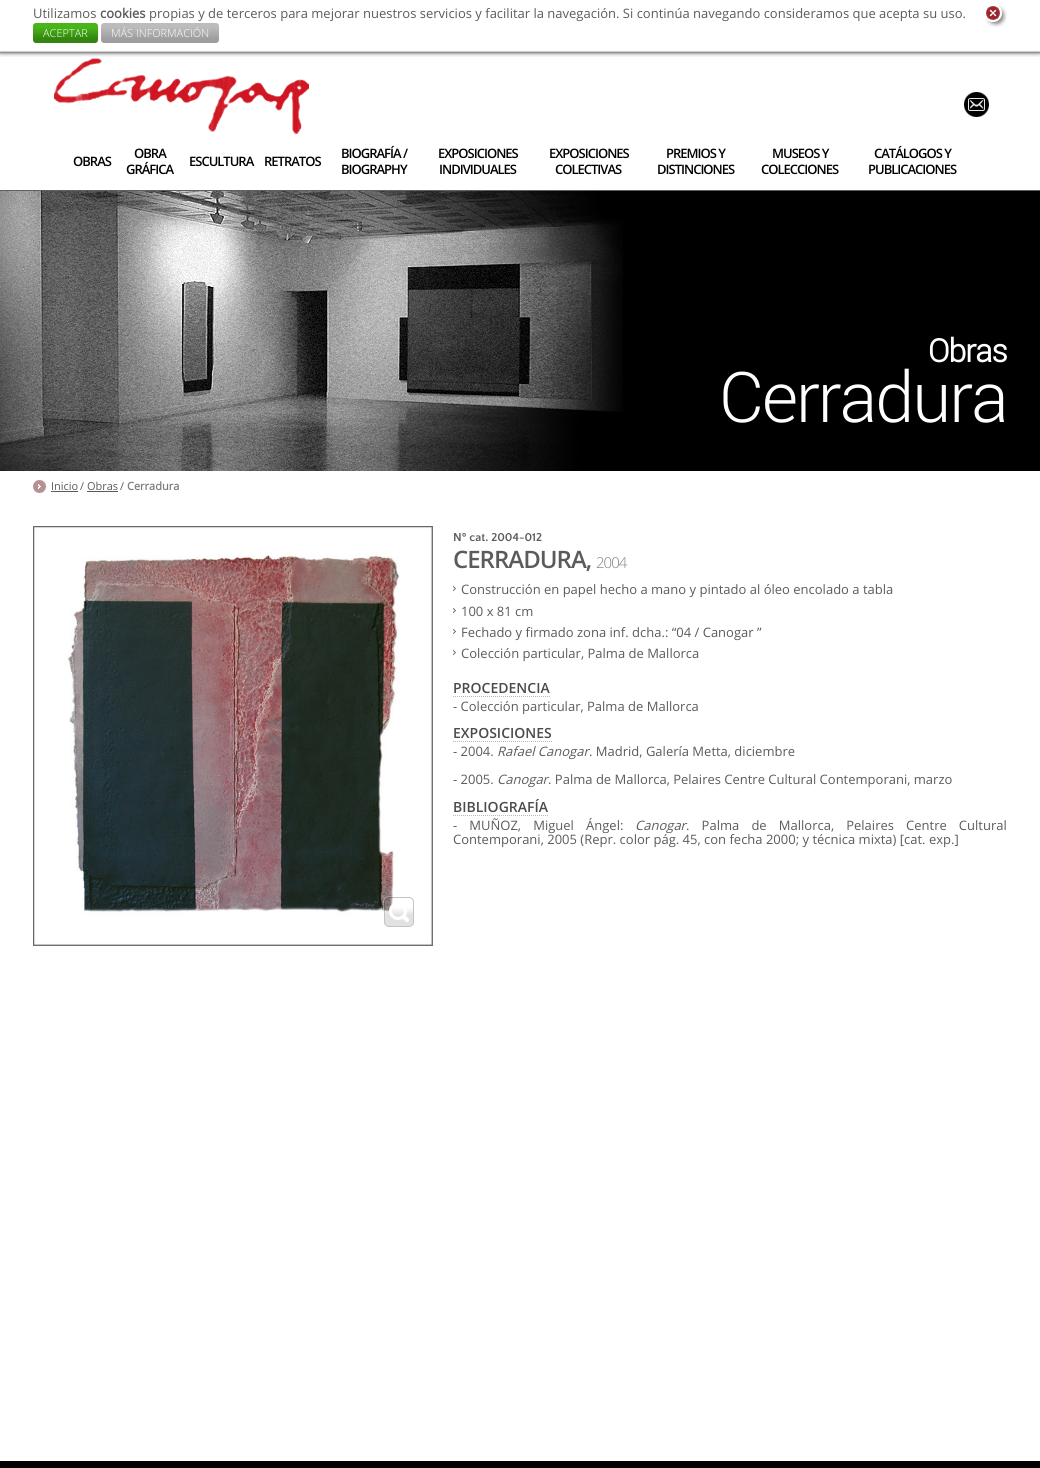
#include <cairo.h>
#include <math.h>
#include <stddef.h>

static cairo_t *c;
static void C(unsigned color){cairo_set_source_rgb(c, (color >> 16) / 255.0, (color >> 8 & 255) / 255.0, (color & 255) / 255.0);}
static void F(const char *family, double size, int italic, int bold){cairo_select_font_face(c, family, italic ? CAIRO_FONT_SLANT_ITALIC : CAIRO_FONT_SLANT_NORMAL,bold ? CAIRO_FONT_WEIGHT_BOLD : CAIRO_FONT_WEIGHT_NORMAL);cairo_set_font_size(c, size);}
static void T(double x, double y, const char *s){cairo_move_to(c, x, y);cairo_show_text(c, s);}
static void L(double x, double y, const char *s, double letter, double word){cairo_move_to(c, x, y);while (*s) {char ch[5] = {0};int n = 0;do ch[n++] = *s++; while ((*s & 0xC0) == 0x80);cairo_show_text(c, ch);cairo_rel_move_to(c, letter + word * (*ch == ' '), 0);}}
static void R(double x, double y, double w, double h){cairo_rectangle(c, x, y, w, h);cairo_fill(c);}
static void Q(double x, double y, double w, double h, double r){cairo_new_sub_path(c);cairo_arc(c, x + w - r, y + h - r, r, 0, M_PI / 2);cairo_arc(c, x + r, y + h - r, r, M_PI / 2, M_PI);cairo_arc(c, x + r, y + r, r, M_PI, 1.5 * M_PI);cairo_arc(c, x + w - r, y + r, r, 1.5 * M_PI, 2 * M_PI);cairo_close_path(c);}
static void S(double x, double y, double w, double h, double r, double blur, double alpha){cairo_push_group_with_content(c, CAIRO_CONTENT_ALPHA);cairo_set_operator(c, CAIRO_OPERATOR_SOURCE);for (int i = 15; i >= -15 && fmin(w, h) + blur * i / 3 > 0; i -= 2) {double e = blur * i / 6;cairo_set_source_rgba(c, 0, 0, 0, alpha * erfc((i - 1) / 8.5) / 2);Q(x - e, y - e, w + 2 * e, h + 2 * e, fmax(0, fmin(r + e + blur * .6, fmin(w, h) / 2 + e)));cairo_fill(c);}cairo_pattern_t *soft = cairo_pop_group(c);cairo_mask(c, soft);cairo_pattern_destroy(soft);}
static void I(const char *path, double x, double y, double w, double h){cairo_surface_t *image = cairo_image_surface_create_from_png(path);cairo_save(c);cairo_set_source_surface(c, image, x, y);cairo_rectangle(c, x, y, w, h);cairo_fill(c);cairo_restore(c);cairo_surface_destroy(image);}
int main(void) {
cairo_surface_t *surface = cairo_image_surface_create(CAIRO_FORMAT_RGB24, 1040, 1468);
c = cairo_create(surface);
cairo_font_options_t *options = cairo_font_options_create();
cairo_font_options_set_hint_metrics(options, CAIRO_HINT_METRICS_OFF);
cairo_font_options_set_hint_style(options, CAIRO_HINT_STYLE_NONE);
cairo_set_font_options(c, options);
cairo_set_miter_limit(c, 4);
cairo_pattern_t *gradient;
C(0xffffff);
cairo_paint(c);
I("4.png",54,58,255,76);
cairo_save(c);
cairo_rectangle(c,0,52,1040,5);
cairo_clip(c);
C(0x000000);
S(0,0,1040,52,0,2.5,1);
cairo_restore(c);
C(0xcccccc);
R(0,51,1040,1);
F("Open Sans",13,0,0);
C(0x5b5b5b);
T(33,18,"Utilizamos");
F("Open Sans",13,0,1);
T(100,18,"cookies");
F("Open Sans",13,0,0);
T(149,18,"propias y de terceros para mejorar nuestros servicios y facilitar la navegación. Si continúa navegando consideramos que acepta su uso.");
gradient = cairo_pattern_create_linear(66,23,66,43);
cairo_pattern_add_color_stop_rgba(gradient,.2,0.282,0.714,0.098,1);
cairo_pattern_add_color_stop_rgba(gradient,.8,0.196,0.522,0.055,1);
cairo_set_source(c,gradient);
cairo_pattern_destroy(gradient);
Q(33,23,65,20,3);
cairo_fill(c);
F("Open Sans Light",11,0,0);
C(0xffffff);
T(43,37,"ACEPTAR");
gradient = cairo_pattern_create_linear(160,23,160,43);
cairo_pattern_add_color_stop_rgba(gradient,.2,0.741,0.737,0.737,1);
cairo_pattern_add_color_stop_rgba(gradient,.8,0.62,0.62,0.62,1);
cairo_set_source(c,gradient);
cairo_pattern_destroy(gradient);
Q(101,23,118,20,3);
cairo_fill(c);
C(0xffffff);
T(111,37,"MÁS INFORMACIÓN");
I("1.png",985,5,22,22);
C(0x606060);
R(0,190,1040,1);
I("2.png",964,92,25,25);
F("Open Sans SemiBold",13,0,0);
C(0x000000);
L(73,166,"OBRAS",-1,0);
L(134,158,"OBRA",-1,0);
L(126,174,"GRÁFICA",-1,0);
L(189,166,"ESCULTURA",-1,0);
L(264,166,"RETRATOS",-1,0);
L(341,158,"BIOGRAFÍA /",-1,0);
L(341,174,"BIOGRAPHY",-1,0);
L(438,158,"EXPOSICIONES",-1,0);
L(439,174,"INDIVIDUALES",-1,0);
L(549,158,"EXPOSICIONES",-1,0);
L(555,174,"COLECTIVAS",-1,0);
L(666,158,"PREMIOS Y",-1,0);
L(657,174,"DISTINCIONES",-1,0);
L(772,158,"MUSEOS Y",-1,0);
L(761,174,"COLECCIONES",-1,0);
L(874,158,"CATÁLOGOS Y",-1,0);
L(868,174,"PUBLICACIONES",-1,0);
R(623,191,417,280);
I("3.png",0,191,623,280);
F("Roboto",32,0,1);
C(0xffffff);
L(928,362,"Obras",-1,0);
F("Roboto Light",70,0,0);
L(719,422,"Cerradura",-2,0);
I("5.png",33,480,13,13);
F("Open Sans",11,0,0);
C(0x5b5b5b);
T(51,490,"Inicio");
R(51,491,27,1);
T(80,490,"/ Obras");
T(120,490,"/");
F("Open Sans",11,0,1);
C(0x7d7d7d);
T(127,490,"Cerradura");
C(0x5b5b5b);
R(87,491,31,1);
I("6.png",33,526,400,420);
I("7.png",383,896,31,31);
F("Quattrocento Sans",12,0,1);
T(453,541,"Nº cat. 2004-012");
F("Open Sans SemiBold",24,0,0);
L(453,568,"CERRADURA,",-1,0);
F("Open Sans Light",15,0,0);
C(0x837f7f);
L(596,568,"2004",-1,0);
I("8.png",453,586,3,5);
F("Open Sans",13,0,0);
C(0x5b5b5b);
T(461,594,"Construcción en papel hecho a mano y pintado al óleo encolado a tabla");
I("8.png",453,608,3,5);
T(461,616,"100 x 81 cm");
I("8.png",453,629,3,5);
T(461,637,"Fechado y firmado zona inf. dcha.: “04 / Canogar ”");
I("8.png",453,650,3,5);
T(461,658,"Colección particular, Palma de Mallorca");
cairo_new_path(c);
cairo_move_to(c,453,696.5);
cairo_line_to(c,550,696.5);
C(0xbab7b7);
cairo_set_line_width(c,1);
cairo_set_dash(c,(double[]){1,1},2,0);
cairo_stroke(c);
F("Open Sans SemiBold",14,0,0);
C(0x4b4b4b);
T(453,693,"PROCEDENCIA");
F("Open Sans",13,0,0);
C(0x5b5b5b);
T(453,711,"- Colección particular, Palma de Mallorca");
cairo_new_path(c);
cairo_move_to(c,453,741.5);
cairo_line_to(c,552,741.5);
C(0xbab7b7);
cairo_stroke(c);
F("Open Sans SemiBold",14,0,0);
C(0x4b4b4b);
T(453,738,"EXPOSICIONES");
F("Open Sans",13,0,0);
C(0x5b5b5b);
T(453,756,"- 2004.");
F("Open Sans",13,1,0);
T(497,756,"Rafael Canogar");
F("Open Sans",13,0,0);
T(589,756,". Madrid, Galería Metta, diciembre");
T(453,784,"- 2005.");
F("Open Sans",13,1,0);
T(497,784,"Canogar");
F("Open Sans",13,0,0);
T(548,784,". Palma de Mallorca, Pelaires Centre Cultural Contemporani, marzo");
cairo_new_path(c);
cairo_move_to(c,453,815.5);
cairo_line_to(c,548,815.5);
C(0xbab7b7);
cairo_stroke(c);
F("Open Sans SemiBold",14,0,0);
C(0x4b4b4b);
T(453,812,"BIBLIOGRAFÍA");
F("Open Sans",13,0,0);
C(0x5b5b5b);
L(453,830,"- MUÑOZ, Miguel Ángel:",0,8.75);
F("Open Sans",13,1,0);
T(635,830,"Canogar");
F("Open Sans",13,0,0);
L(686,830,". Palma de Mallorca, Pelaires Centre Cultural",0,8.75);
T(453,844,"Contemporani, 2005 (Repr. color pág. 45, con fecha 2000; y técnica mixta) [cat. exp.]");
C(0x000000);
R(0,1461,1040,7);
cairo_surface_write_to_png(surface, "o.png");
cairo_font_options_destroy(options);
cairo_destroy(c);
cairo_surface_destroy(surface);
return 0;
}
